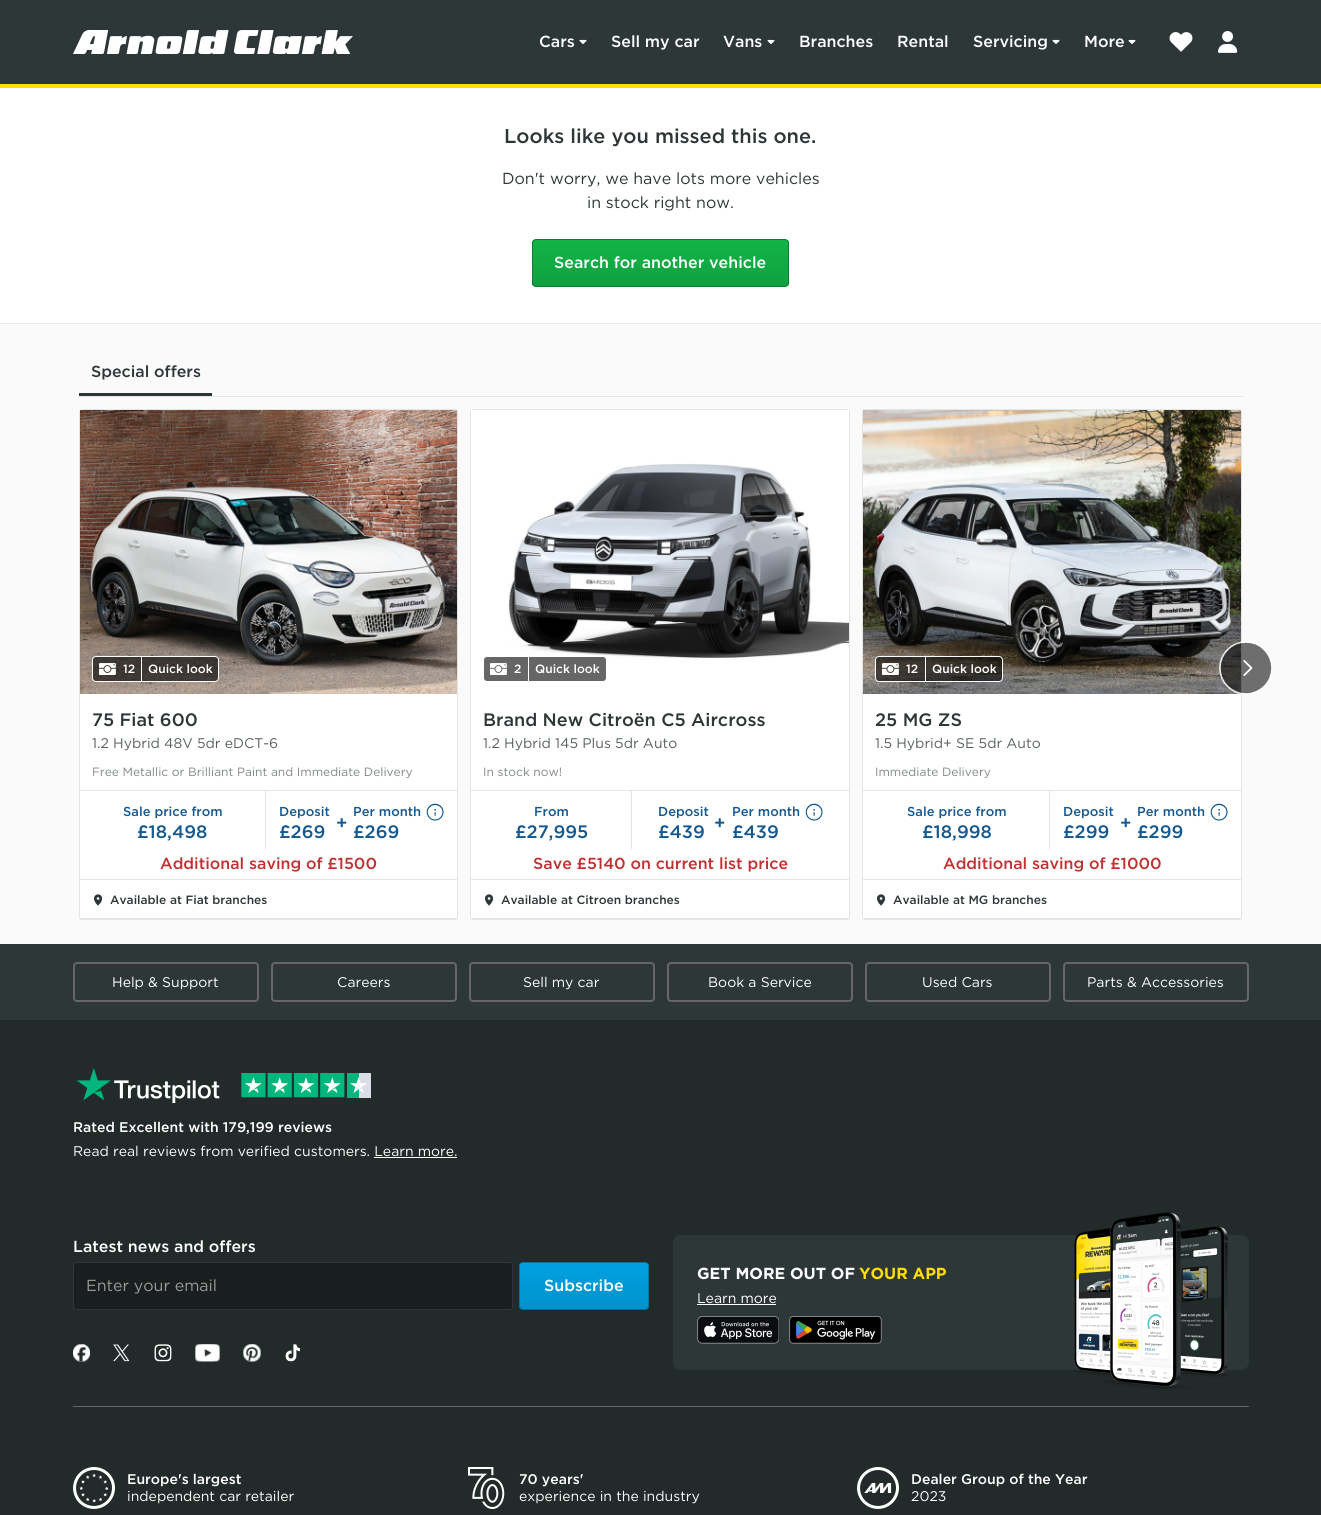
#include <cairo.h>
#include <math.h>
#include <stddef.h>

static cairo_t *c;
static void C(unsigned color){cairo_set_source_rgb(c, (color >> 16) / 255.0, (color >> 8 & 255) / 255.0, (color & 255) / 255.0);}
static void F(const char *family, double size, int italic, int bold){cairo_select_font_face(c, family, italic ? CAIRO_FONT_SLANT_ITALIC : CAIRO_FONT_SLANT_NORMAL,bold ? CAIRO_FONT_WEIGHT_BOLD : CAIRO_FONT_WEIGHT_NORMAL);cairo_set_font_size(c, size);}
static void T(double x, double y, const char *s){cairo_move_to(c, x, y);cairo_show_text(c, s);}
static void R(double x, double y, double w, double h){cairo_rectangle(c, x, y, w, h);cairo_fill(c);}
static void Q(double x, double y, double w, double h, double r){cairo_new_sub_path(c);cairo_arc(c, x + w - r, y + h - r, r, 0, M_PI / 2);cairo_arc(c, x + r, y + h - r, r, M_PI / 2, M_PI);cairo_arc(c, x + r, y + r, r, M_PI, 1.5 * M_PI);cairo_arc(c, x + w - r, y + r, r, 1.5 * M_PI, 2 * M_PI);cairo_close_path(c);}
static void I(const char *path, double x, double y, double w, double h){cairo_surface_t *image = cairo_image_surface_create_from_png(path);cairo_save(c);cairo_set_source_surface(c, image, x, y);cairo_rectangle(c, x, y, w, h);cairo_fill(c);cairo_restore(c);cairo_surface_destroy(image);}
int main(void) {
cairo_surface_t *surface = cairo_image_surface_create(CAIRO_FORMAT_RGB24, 1321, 1515);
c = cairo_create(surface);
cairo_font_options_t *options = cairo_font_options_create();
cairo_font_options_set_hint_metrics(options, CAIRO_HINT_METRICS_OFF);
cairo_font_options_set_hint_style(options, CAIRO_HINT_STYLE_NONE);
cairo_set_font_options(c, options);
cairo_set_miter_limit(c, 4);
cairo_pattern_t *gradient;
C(0xfafafa);
cairo_paint(c);
C(0x2d3737);
R(0,0,1321,84);
C(0xffde00);
R(0,84,1321,4);
I("1.png",73,30,280,24);
I("2.png",579,39,8,5);
F("Gotham Medium",16,0,0);
C(0xffffff);
T(539,47,"Cars");
T(611,47,"Sell my car");
I("2.png",767,39,8,5);
T(723,47,"Vans");
T(799,47,"Branches");
T(897,47,"Rental");
I("2.png",1052,39,8,5);
T(973,47,"Servicing");
I("2.png",1128,39,8,5);
T(1084,47,"More");
I("3.png",1169,32,24,20);
I("4.png",1218,31,20,22);
R(0,88,1321,235);
C(0xe5e5e5);
R(0,323,1321,1);
F("Gotham Medium",20,0,0);
C(0x2d3737);
T(504,143,"Looks like you missed this one.");
F("Gotham",16,0,0);
T(502,184,"Don't worry, we have lots more vehicles");
T(587,208,"in stock right now.");
cairo_save(c);
Q(532,239,257,48,4);
cairo_clip(c);
gradient = cairo_pattern_create_linear(661,240,661,286);
cairo_pattern_add_color_stop_rgba(gradient,0,0.071,0.706,0.278,1);
cairo_pattern_add_color_stop_rgba(gradient,1,0.063,0.631,0.251,1);
cairo_set_source(c,gradient);
cairo_pattern_destroy(gradient);
R(532,240,257,46);
cairo_restore(c);
Q(532.5,239.5,256,47,3.5);
C(0x0c7c31);
cairo_set_line_width(c,1);
cairo_stroke(c);
F("Gotham Medium",16,0,0);
C(0xffffff);
T(554,268,"Search for another vehicle");
C(0xe5e5e5);
R(79,396,1164,1);
C(0x2d3737);
R(79,393,133,3);
T(91,377,"Special offers");
C(0xffffff);
cairo_new_path(c);
cairo_move_to(c,82,410);
cairo_line_to(c,455,410);
cairo_curve_to(c,456,410,457,411,457,412);
cairo_line_to(c,457,917);
cairo_curve_to(c,457,918,456,918,455,918);
cairo_line_to(c,82,918);
cairo_curve_to(c,81,918,80,918,80,917);
cairo_line_to(c,80,412);
cairo_curve_to(c,80,411,81,410,82,410);
cairo_close_path(c);
cairo_fill(c);
Q(79.5,409.5,378,510,2.5);
C(0xe5e5e5);
cairo_stroke(c);
R(81,918,376,1);
I("5.png",80,410,377,284);
cairo_set_source_rgba(c,0,0,0,0.6);
Q(92.5,656.5,126,25,3.5);
cairo_fill_preserve(c);
C(0xffffff);
cairo_stroke(c);
I("6.png",99,663,17,12);
R(141,657,1,24);
F("Gotham Medium",12,0,0);
T(123,673,"12");
T(148,673,"Quick look");
F("Gotham Medium",18,0,0);
C(0x2d3737);
T(92,726,"75 Fiat 600");
F("Gotham",14,0,0);
C(0x57605f);
T(92,748,"1.2 Hybrid 48V 5dr eDCT-6");
F("Gotham",12,0,0);
C(0x818787);
T(92,776,"Free Metallic or Brilliant Paint and Immediate Delivery");
C(0xe5e5e5);
R(80,790,377,1);
R(80,879,377,1);
F("Gotham Medium",13,0,0);
C(0x155991);
T(123,816,"Sale price from");
F("Gotham Medium",18,0,0);
T(137,838,"£18,498");
C(0xe5e5e5);
R(265,791,1,64);
F("Gotham Medium",13,0,0);
C(0x155991);
T(279,816,"Deposit");
F("Gotham Medium",18,0,0);
T(279,838,"£269");
T(336,829,"+");
F("Gotham Medium",13,0,0);
T(353,816,"Per month");
I("7.png",426,803,18,18);
F("Gotham Medium",18,0,0);
T(353,838,"£269");
C(0xffffff);
R(265,849,1,6);
F("Gotham Medium",16,0,0);
C(0xc23131);
T(160,869,"Additional saving of £1500");
I("8.png",94,894,9,12);
F("Gotham Medium",12,0,0);
C(0x2d3737);
T(110,904,"Available at Fiat branches");
C(0xffffff);
cairo_new_path(c);
cairo_move_to(c,473,410);
cairo_line_to(c,847,410);
cairo_curve_to(c,848,410,849,411,849,412);
cairo_line_to(c,849,917);
cairo_curve_to(c,849,918,848,918,847,918);
cairo_line_to(c,473,918);
cairo_curve_to(c,472,918,471,918,471,917);
cairo_line_to(c,471,412);
cairo_curve_to(c,471,411,472,410,473,410);
cairo_close_path(c);
cairo_fill(c);
Q(470.5,409.5,379,510,2.5);
C(0xe5e5e5);
cairo_stroke(c);
R(472,918,377,1);
I("9.png",471,410,378,249);
C(0x666666);
Q(483.5,656.5,123,25,3.5);
cairo_fill_preserve(c);
C(0xffffff);
cairo_stroke(c);
I("10.png",490,663,17,12);
R(528,657,1,24);
T(514,673,"2");
T(535,673,"Quick look");
F("Gotham Medium",18,0,0);
C(0x2d3737);
T(483,726,"Brand New Citroën C5 Aircross");
F("Gotham",14,0,0);
C(0x57605f);
T(483,748,"1.2 Hybrid 145 Plus 5dr Auto");
F("Gotham",12,0,0);
C(0x818787);
T(483,776,"In stock now!");
C(0xe5e5e5);
R(471,790,378,1);
R(471,879,378,1);
F("Gotham Medium",13,0,0);
C(0x155991);
T(534,816,"From");
F("Gotham Medium",18,0,0);
T(515,838,"£27,995");
C(0xe5e5e5);
R(631,791,1,64);
F("Gotham Medium",13,0,0);
C(0x155991);
T(658,816,"Deposit");
F("Gotham Medium",18,0,0);
T(658,838,"£439");
T(714,829,"+");
F("Gotham Medium",13,0,0);
T(732,816,"Per month");
I("7.png",805,803,18,18);
F("Gotham Medium",18,0,0);
T(732,838,"£439");
C(0xffffff);
R(631,849,1,6);
F("Gotham Medium",16,0,0);
C(0xc23131);
T(533,869,"Save £5140 on current list price");
I("8.png",485,894,9,12);
F("Gotham Medium",12,0,0);
C(0x2d3737);
T(501,904,"Available at Citroen branches");
C(0xffffff);
cairo_new_path(c);
cairo_move_to(c,865,410);
cairo_line_to(c,1239,410);
cairo_curve_to(c,1240,410,1241,411,1241,412);
cairo_line_to(c,1241,917);
cairo_curve_to(c,1241,918,1240,918,1239,918);
cairo_line_to(c,865,918);
cairo_curve_to(c,864,918,863,918,863,917);
cairo_line_to(c,863,412);
cairo_curve_to(c,863,411,864,410,865,410);
cairo_close_path(c);
cairo_fill(c);
Q(862.5,409.5,379,510,2.5);
C(0xe5e5e5);
cairo_stroke(c);
R(864,918,377,1);
I("11.png",863,410,378,284);
cairo_set_source_rgba(c,0,0,0,0.6);
Q(875.5,656.5,127,25,3.5);
cairo_fill_preserve(c);
C(0xffffff);
cairo_stroke(c);
I("12.png",882,663,17,12);
R(925,657,1,24);
T(906,673,"12");
T(932,673,"Quick look");
F("Gotham Medium",18,0,0);
C(0x2d3737);
T(875,726,"25 MG ZS");
F("Gotham",14,0,0);
C(0x57605f);
T(875,748,"1.5 Hybrid+ SE 5dr Auto");
F("Gotham",12,0,0);
C(0x818787);
T(875,776,"Immediate Delivery");
C(0xe5e5e5);
R(863,790,378,1);
R(863,879,378,1);
F("Gotham Medium",13,0,0);
C(0x155991);
T(907,816,"Sale price from");
F("Gotham Medium",18,0,0);
T(922,838,"£18,998");
C(0xe5e5e5);
R(1049,791,1,64);
F("Gotham Medium",13,0,0);
C(0x155991);
T(1063,816,"Deposit");
F("Gotham Medium",18,0,0);
T(1063,838,"£299");
T(1120,829,"+");
F("Gotham Medium",13,0,0);
T(1137,816,"Per month");
I("7.png",1210,803,18,18);
F("Gotham Medium",18,0,0);
T(1137,838,"£299");
C(0xffffff);
R(1049,849,1,6);
F("Gotham Medium",16,0,0);
C(0xc23131);
T(943,869,"Additional saving of £1000");
I("8.png",877,894,9,12);
F("Gotham Medium",12,0,0);
C(0x2d3737);
T(893,904,"Available at MG branches");
I("13.png",1219,641,53,54);
C(0x222a2a);
R(0,1020,1321,495);
C(0x2d3737);
R(0,944,1321,76);
Q(74,963,184,38,3);
C(0x666666);
cairo_set_line_width(c,2);
cairo_stroke(c);
F("Gotham",14,0,0);
C(0xffffff);
T(112,987,"Help & Support");
Q(272,963,184,38,3);
C(0x666666);
cairo_stroke(c);
C(0xffffff);
T(337,987,"Careers");
Q(470,963,184,38,3);
C(0x666666);
cairo_stroke(c);
C(0xffffff);
T(523,987,"Sell my car");
Q(668,963,184,38,3);
C(0x666666);
cairo_stroke(c);
C(0xffffff);
T(708,987,"Book a Service");
Q(866,963,184,38,3);
C(0x666666);
cairo_stroke(c);
C(0xffffff);
T(922,987,"Used Cars");
Q(1064,963,184,38,3);
C(0x666666);
cairo_stroke(c);
C(0xffffff);
T(1087,987,"Parts & Accessories");
I("14.png",77,1068,143,35);
I("15.png",241,1073,130,25);
F("Gotham Medium",14,0,0);
T(73,1132,"Rated Excellent with 179,199 reviews");
F("Gotham",14,0,0);
T(73,1156,"Read real reviews from verified customers. Learn more.");
R(374,1157,83,1);
F("Gotham Medium",16,0,0);
T(73,1252,"Latest news and offers");
C(0x191f1f);
Q(73.5,1262.5,439,47,2.5);
cairo_fill_preserve(c);
C(0x2f3838);
cairo_set_line_width(c,1);
cairo_stroke(c);
F("Gotham",16,0,0);
C(0x999999);
T(86,1291,"Enter your email");
cairo_save(c);
Q(519,1262,130,48,4);
cairo_clip(c);
gradient = cairo_pattern_create_linear(584,1263,584,1309);
cairo_pattern_add_color_stop_rgba(gradient,0,0,0.631,0.878,1);
cairo_pattern_add_color_stop_rgba(gradient,1,0,0.573,0.8,1);
cairo_set_source(c,gradient);
cairo_pattern_destroy(gradient);
R(519,1263,130,46);
cairo_restore(c);
Q(519.5,1262.5,129,47,3.5);
C(0x0075a3);
cairo_stroke(c);
F("Gotham Medium",16,0,0);
C(0xffffff);
T(544,1291,"Subscribe");
I("16.png",73,1344,17,18);
I("17.png",113,1344,17,18);
I("18.png",154,1344,18,18);
I("19.png",195,1344,25,18);
I("20.png",243,1344,18,18);
I("21.png",285,1344,15,18);
C(0x2d3737);
Q(673,1235,576,135,8);
cairo_fill(c);
F("Gotham",16,0,1);
C(0xffffff);
T(697,1279,"GET MORE OUT OF");
C(0xffde00);
T(859,1279,"YOUR APP");
F("Gotham",14,0,0);
C(0xffffff);
T(697,1303,"Learn more");
R(697,1304,79,1);
I("22.png",697,1316,82,28);
I("23.png",789,1316,93,28);
I("24.png",1073,1212,156,177);
C(0x666666);
R(73,1406,1176,1);
I("25.png",73,1467,42,42);
F("Gotham Medium",14,0,0);
C(0xffffff);
T(127,1484,"Europe's largest");
F("Gotham",14,0,0);
T(127,1501,"independent car retailer");
I("26.png",468,1467,37,42);
F("Gotham Medium",14,0,0);
T(519,1484,"70 years'");
F("Gotham",14,0,0);
T(519,1501,"experience in the industry");
I("27.png",857,1467,42,42);
F("Gotham Medium",14,0,0);
T(911,1484,"Dealer Group of the Year");
F("Gotham",14,0,0);
T(911,1501,"2023");
cairo_surface_write_to_png(surface, "o.png");
cairo_font_options_destroy(options);
cairo_destroy(c);
cairo_surface_destroy(surface);
return 0;
}
